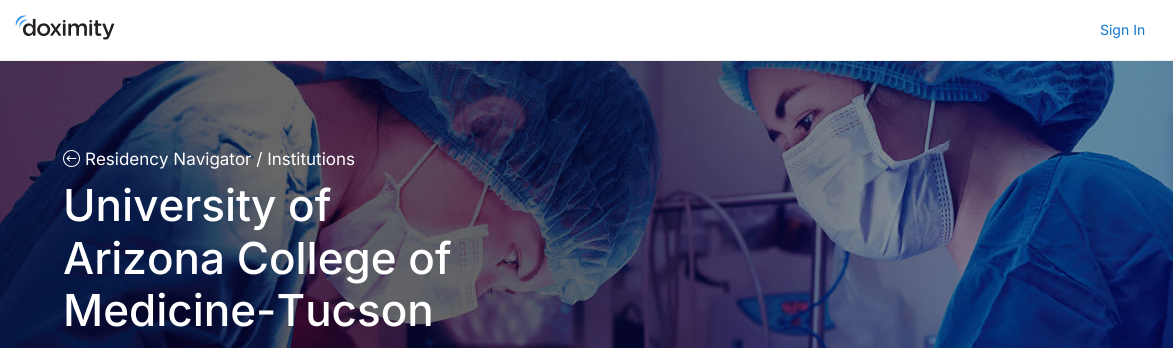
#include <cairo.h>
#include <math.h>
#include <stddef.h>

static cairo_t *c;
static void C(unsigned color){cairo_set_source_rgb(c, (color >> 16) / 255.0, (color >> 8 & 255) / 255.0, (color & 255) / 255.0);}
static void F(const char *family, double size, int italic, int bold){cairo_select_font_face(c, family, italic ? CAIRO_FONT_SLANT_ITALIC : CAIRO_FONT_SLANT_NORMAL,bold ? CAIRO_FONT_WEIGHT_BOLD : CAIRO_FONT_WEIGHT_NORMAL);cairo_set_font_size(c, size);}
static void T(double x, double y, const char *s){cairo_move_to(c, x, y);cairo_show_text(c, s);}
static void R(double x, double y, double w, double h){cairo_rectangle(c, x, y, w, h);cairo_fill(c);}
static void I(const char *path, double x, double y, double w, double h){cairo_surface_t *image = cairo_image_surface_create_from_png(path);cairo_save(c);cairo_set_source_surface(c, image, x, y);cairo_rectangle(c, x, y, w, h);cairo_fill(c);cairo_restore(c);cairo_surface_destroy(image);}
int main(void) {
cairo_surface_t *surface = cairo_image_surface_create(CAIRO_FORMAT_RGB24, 1173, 348);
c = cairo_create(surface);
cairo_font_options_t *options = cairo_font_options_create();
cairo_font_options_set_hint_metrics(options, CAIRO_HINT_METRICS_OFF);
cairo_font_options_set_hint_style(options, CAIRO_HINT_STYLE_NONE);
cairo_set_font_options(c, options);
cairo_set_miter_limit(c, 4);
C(0xffffff);
cairo_paint(c);
C(0xeeeeee);
R(0,60,1173,1);
I("1.png",15,15,100,25);
F("Inter",14,0,0);
C(0x1276d3);
T(1100,35,"Sign In");
I("2.png",0,61,1173,287);
I("3.png",63,150,17,17);
F("Inter",17,0,0);
C(0xffffff);
T(85,165,"Residency Navigator / Institutions");
F("Inter Medium",44,0,0);
T(63,221,"University of");
T(63,274,"Arizona College of");
T(63,326,"Medicine-Tucson");
cairo_surface_write_to_png(surface, "o.png");
cairo_font_options_destroy(options);
cairo_destroy(c);
cairo_surface_destroy(surface);
return 0;
}
